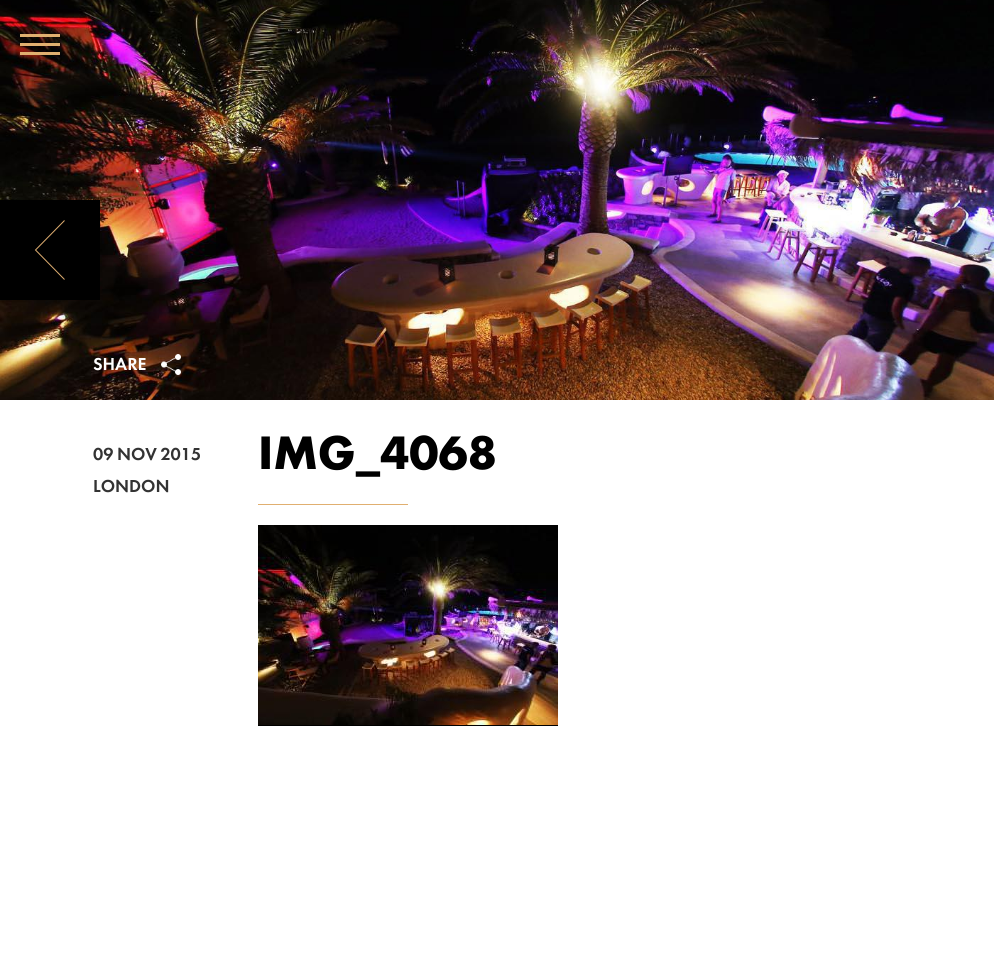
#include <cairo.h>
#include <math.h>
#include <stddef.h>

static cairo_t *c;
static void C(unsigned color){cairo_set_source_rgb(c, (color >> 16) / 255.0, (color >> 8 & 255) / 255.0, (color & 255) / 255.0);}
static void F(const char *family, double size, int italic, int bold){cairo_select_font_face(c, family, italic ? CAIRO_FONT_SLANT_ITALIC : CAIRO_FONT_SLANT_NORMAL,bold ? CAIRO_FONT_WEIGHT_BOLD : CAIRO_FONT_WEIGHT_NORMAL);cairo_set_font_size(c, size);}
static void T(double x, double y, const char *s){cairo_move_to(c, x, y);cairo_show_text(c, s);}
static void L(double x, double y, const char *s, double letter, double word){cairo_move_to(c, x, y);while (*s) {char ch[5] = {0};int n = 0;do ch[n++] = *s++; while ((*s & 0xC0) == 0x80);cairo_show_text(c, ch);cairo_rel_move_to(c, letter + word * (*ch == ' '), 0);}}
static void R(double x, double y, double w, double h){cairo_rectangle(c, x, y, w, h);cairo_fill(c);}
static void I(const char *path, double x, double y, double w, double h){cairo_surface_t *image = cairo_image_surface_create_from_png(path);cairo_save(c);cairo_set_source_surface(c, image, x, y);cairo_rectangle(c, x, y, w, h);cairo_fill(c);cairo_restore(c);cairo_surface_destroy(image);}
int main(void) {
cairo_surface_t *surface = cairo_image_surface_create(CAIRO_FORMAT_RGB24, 994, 978);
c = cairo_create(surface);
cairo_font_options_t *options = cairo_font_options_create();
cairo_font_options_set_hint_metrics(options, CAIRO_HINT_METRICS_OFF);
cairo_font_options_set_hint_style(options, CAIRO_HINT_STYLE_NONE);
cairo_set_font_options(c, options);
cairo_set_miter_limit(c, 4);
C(0xffffff);
cairo_paint(c);
I("1.png",0,0,994,400);
C(0xe0af70);
R(20,43,40,3);
R(20,34,40,3);
R(20,52,40,3);
C(0x000000);
R(0,200,100,100);
cairo_new_path(c);
cairo_move_to(c,64.5,220.5);
cairo_line_to(c,35.5,250);
cairo_line_to(c,64.5,279.5);
C(0xdfae71);
cairo_set_line_width(c,1);
cairo_stroke(c);
F("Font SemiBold",18,0,0);
C(0xffffff);
T(93,370,"SHARE");
I("2.png",161,354,20,21);
C(0x333333);
L(93,460,"09 NOV 2015",0,-1);
T(93,492,"LONDON");
F("Font",48.75,0,1);
C(0x000000);
T(258,469,"IMG_4068");
C(0xe0af70);
R(258,504,150,1);
C(0x000000);
R(258,725,300,1);
I("3.png",258,525,300,200);
cairo_surface_write_to_png(surface, "o.png");
cairo_font_options_destroy(options);
cairo_destroy(c);
cairo_surface_destroy(surface);
return 0;
}
